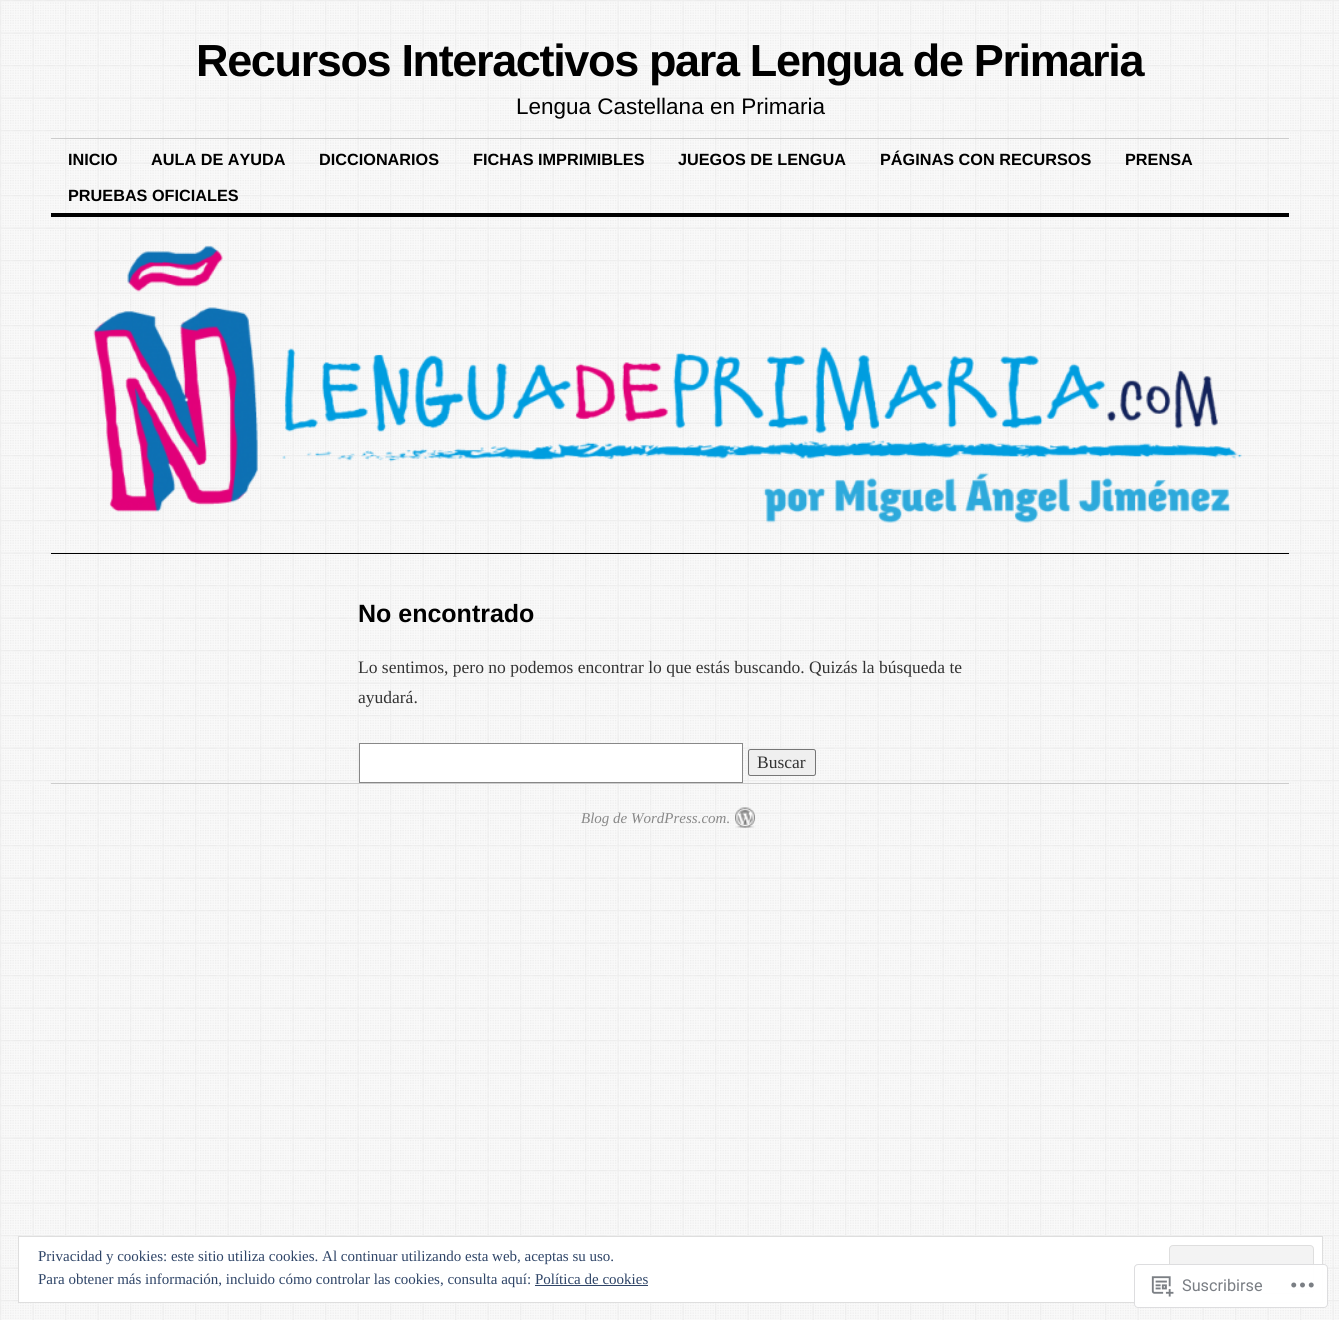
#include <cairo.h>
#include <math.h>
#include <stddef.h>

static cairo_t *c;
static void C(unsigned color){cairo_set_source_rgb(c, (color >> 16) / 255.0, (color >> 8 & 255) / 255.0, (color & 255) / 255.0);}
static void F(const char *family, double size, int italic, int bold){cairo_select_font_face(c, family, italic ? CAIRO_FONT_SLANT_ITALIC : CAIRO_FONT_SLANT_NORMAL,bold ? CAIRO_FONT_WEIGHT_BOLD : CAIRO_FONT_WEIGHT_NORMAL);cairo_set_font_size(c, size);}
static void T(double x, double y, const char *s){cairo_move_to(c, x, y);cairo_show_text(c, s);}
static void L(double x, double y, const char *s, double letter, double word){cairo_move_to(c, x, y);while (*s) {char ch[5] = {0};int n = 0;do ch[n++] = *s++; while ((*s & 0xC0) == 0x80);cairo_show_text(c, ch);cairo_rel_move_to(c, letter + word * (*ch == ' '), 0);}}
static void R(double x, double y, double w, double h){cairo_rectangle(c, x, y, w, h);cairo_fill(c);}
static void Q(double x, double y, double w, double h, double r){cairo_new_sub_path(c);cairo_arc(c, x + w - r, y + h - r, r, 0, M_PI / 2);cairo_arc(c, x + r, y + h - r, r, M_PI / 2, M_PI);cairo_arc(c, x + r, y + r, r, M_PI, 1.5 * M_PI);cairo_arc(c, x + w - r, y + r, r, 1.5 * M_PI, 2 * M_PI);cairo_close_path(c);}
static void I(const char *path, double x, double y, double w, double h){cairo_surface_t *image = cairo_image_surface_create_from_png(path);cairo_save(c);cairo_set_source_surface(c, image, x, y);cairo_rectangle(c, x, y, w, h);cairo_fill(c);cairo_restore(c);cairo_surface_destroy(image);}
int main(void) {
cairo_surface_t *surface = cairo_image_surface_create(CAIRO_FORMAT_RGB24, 1339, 1320);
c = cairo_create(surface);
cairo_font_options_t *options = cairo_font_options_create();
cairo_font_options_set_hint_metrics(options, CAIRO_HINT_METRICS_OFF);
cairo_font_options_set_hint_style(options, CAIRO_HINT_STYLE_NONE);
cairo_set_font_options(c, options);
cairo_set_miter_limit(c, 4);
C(0xffffff);
cairo_paint(c);
I("1.png",0,0,1339,1320);
F("Liberation Sans",45,0,1);
C(0x000000);
L(196,76,"Recursos Interactivos para Lengua de Primaria",-1.35,0);
F("Liberation Sans",22.5,0,0);
T(516,114,"Lengua Castellana en Primaria");
C(0xcccccc);
R(51,138,1238,1);
F("Liberation Sans",16.25,0,1);
C(0x000000);
T(68,165,"INICIO");
T(151,165,"AULA DE AYUDA");
T(319,165,"DICCIONARIOS");
T(473,165,"FICHAS IMPRIMIBLES");
T(678,165,"JUEGOS DE LENGUA");
T(880,165,"PÁGINAS CON RECURSOS");
T(1125,165,"PRENSA");
T(68,201,"PRUEBAS OFICIALES");
R(51,213,1238,4);
I("2.png",93,245,1149,278);
R(51,553,1238,1);
F("Liberation Sans",25,0,1);
T(358,622,"No encontrado");
F("Liberation Serif",17.5,0,0);
C(0x333333);
T(358,673,"Lo sentimos, pero no podemos encontrar lo que estás buscando. Quizás la búsqueda te");
T(358,703,"ayudará.");
C(0xffffff);
cairo_rectangle(c,359.5,743.5,383,39);
cairo_fill_preserve(c);
C(0x888888);
cairo_set_line_width(c,1);
cairo_stroke(c);
C(0xefefef);
Q(748.5,749.5,67,26,2);
cairo_fill_preserve(c);
C(0x767676);
cairo_stroke(c);
C(0x333333);
T(757,768,"Buscar");
C(0xcccccc);
R(51,783,1238,1);
I("3.png",735,807,20,21);
F("Liberation Serif",15,1,0);
C(0x888888);
T(581,823,"Blog de WordPress.com.");
C(0xffffff);
cairo_rectangle(c,18.5,1236.5,1304,66);
cairo_fill_preserve(c);
C(0xdedede);
cairo_stroke(c);
F("Liberation Serif",15,0,0);
C(0x2e4467);
T(38,1261,"Privacidad y cookies: este sitio utiliza cookies. Al continuar utilizando esta web, aceptas su uso.");
C(0xf3f3f3);
Q(1169.5,1245.5,144,48,3.5);
cairo_fill_preserve(c);
C(0xdedede);
cairo_stroke(c);
C(0x2e4467);
T(38,1284,"Para obtener más información, incluido cómo controlar las cookies, consulta aquí: Política de cookies");
R(535,1285,113,1);
cairo_set_source_rgba(c,1,1,1,0.98);
Q(1134,1264,194,44,4);
cairo_fill(c);
Q(1134.5,1264.5,193,43,3.5);
cairo_set_source_rgba(c,0.863,0.863,0.871,0.98);
cairo_stroke(c);
I("4.png",1151,1276,23,21);
F("Roboto",16.25,0,0);
C(0x7a7e84);
T(1182,1291,"Suscribirse");
I("5.png",1291,1282,23,6);
cairo_surface_write_to_png(surface, "o.png");
cairo_font_options_destroy(options);
cairo_destroy(c);
cairo_surface_destroy(surface);
return 0;
}
